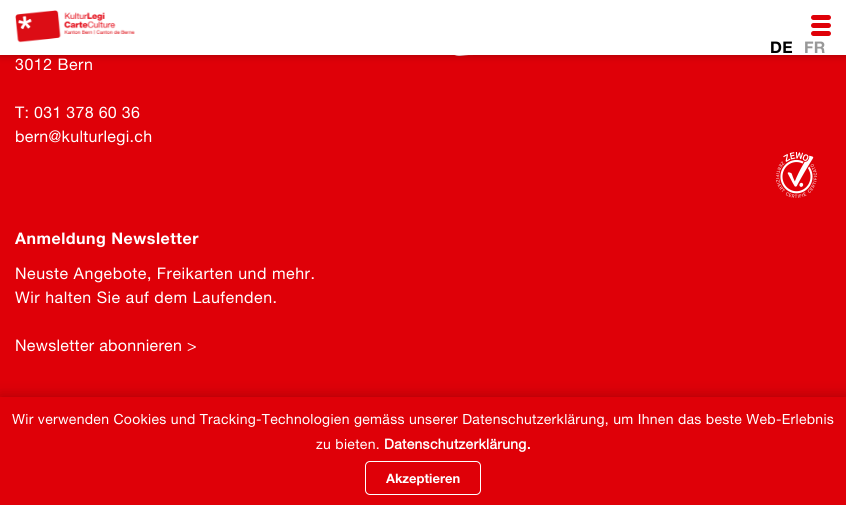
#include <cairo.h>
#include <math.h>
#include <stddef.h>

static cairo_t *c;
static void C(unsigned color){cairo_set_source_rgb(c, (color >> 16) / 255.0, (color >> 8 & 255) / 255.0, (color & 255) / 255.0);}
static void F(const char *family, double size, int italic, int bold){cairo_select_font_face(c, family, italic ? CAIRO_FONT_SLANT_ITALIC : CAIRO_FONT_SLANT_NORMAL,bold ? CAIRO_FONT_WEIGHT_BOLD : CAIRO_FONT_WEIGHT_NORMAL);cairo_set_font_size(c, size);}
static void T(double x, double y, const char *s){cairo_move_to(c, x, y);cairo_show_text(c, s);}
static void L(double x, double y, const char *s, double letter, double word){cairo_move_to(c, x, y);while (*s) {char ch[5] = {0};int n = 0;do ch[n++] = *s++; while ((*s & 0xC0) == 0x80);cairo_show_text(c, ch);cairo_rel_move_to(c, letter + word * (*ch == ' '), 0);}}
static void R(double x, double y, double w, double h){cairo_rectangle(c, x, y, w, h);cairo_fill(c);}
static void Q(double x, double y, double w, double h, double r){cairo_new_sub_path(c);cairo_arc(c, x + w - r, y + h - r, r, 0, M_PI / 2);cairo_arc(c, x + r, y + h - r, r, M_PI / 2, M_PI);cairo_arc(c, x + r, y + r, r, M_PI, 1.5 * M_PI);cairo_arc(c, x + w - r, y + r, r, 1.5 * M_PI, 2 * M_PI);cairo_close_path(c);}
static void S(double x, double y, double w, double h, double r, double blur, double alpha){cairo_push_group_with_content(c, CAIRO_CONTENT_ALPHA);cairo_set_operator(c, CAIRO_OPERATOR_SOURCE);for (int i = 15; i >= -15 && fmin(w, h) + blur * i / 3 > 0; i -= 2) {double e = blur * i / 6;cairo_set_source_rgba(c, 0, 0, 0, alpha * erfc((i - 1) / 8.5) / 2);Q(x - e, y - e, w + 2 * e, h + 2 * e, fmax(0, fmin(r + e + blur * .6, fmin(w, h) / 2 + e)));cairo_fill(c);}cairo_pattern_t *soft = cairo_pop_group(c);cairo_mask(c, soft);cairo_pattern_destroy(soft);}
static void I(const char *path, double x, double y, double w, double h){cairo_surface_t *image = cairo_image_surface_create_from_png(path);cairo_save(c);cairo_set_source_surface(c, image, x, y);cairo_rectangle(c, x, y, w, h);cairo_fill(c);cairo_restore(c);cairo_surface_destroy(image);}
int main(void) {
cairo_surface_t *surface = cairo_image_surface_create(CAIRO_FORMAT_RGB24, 846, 505);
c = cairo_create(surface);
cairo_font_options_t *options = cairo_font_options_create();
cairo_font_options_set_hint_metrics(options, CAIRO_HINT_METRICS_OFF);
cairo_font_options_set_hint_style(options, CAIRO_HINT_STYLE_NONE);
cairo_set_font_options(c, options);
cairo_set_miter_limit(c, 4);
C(0xdf0008);
cairo_paint(c);
I("2.png",454,55,19,1);
C(0x000000);
S(0,0,846,55,0,4,.3);
C(0xffffff);
R(0,0,846,55);
I("1.png",15,10,120,33);
C(0xdf0008);
Q(811,15,20,5,2.5);
cairo_fill(c);
Q(811,23,20,5,2.5);
cairo_fill(c);
Q(811,31,20,5,2.5);
cairo_fill(c);
F("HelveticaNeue",16,0,1);
C(0x010101);
L(770,53,"DE",.3,0);
C(0x989898);
L(804,53,"FR",.3,0);
F("HelveticaNeue",16,0,0);
C(0xffffff);
L(15,70,"3012 Bern",.5,0);
L(15,118,"T: 031 378 60 36",.3,0);
L(15,142,"bern@kulturlegi.ch",.3,0);
F("HelveticaNeue",16,0,1);
L(15,244,"Anmeldung Newsletter",.5,0);
F("HelveticaNeue",16,0,0);
L(15,279,"Neuste Angebote, Freikarten und mehr.",.5,0);
L(15,303,"Wir halten Sie auf dem Laufenden.",.5,0);
L(15,351,"Newsletter abonnieren >",.3,0);
I("3.png",776,152,41,46);
C(0x000000);
S(0,397,846,108,0,7.5,.25);
C(0xdf0008);
R(0,397,846,108);
F("HelveticaNeue",14,0,0);
C(0xffffff);
L(12,424,"Wir verwenden Cookies und Tracking-Technologien gemäss unserer Datenschutzerklärung, um Ihnen das beste Web-Erlebnis",.3,0);
L(316,449,"zu bieten.",.3,0);
F("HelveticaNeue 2",14,0,1);
L(384,449,"Datenschutzerklärung.",.3,0);
Q(365.5,461.5,115,33,4.5);
cairo_set_line_width(c,1);
cairo_stroke(c);
F("HelveticaNeue",13,0,1);
T(386,483,"Akzeptieren");
cairo_surface_write_to_png(surface, "o.png");
cairo_font_options_destroy(options);
cairo_destroy(c);
cairo_surface_destroy(surface);
return 0;
}
